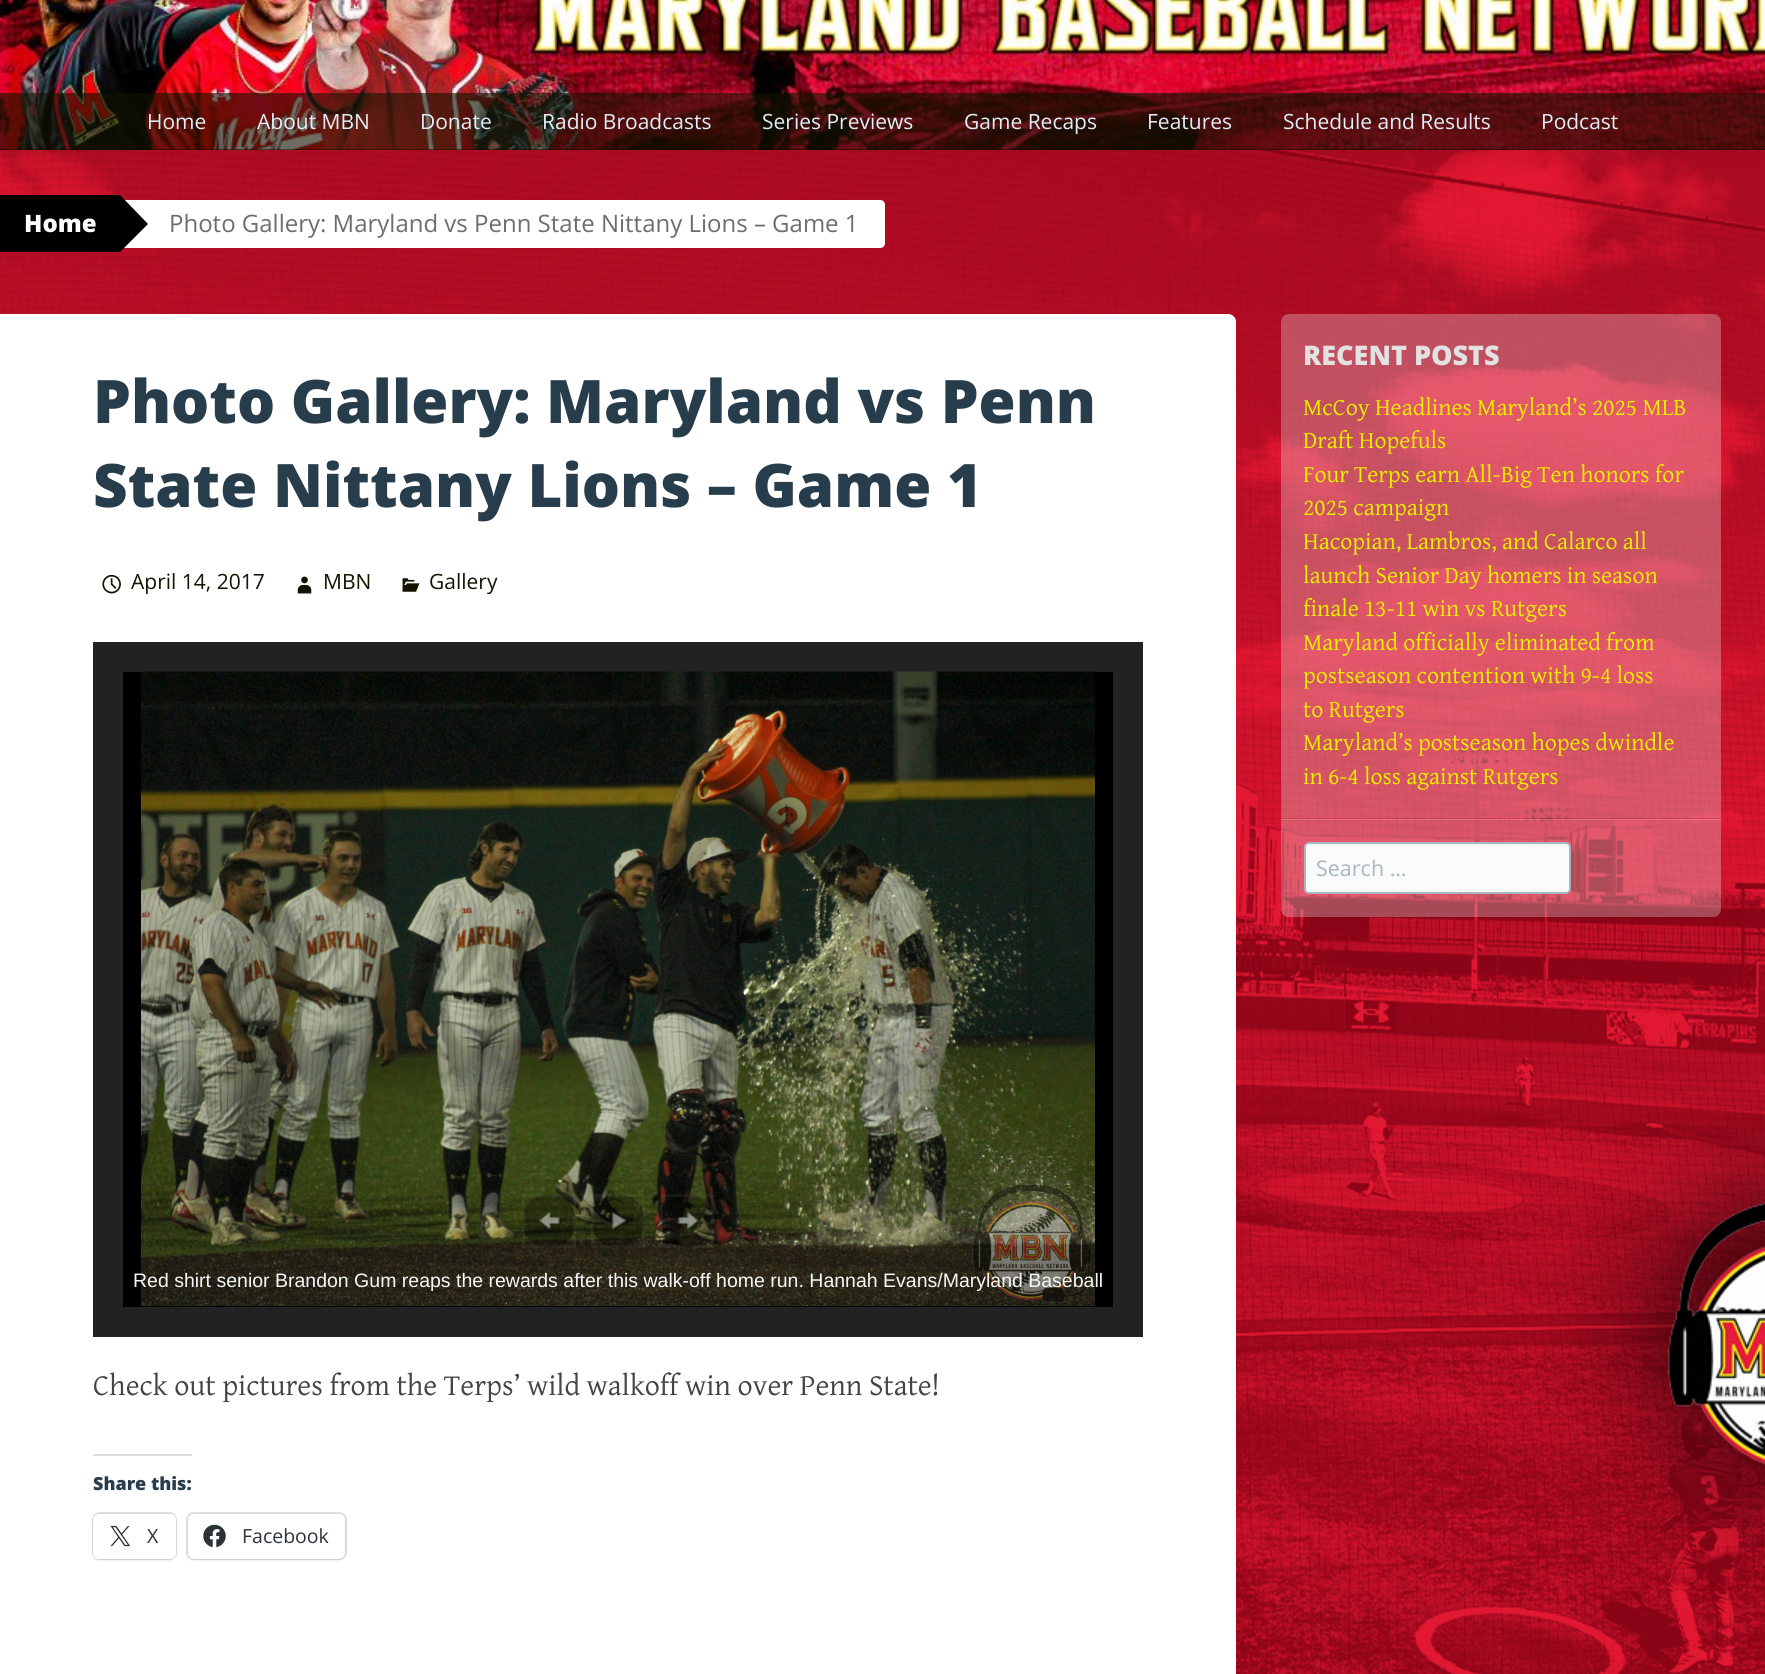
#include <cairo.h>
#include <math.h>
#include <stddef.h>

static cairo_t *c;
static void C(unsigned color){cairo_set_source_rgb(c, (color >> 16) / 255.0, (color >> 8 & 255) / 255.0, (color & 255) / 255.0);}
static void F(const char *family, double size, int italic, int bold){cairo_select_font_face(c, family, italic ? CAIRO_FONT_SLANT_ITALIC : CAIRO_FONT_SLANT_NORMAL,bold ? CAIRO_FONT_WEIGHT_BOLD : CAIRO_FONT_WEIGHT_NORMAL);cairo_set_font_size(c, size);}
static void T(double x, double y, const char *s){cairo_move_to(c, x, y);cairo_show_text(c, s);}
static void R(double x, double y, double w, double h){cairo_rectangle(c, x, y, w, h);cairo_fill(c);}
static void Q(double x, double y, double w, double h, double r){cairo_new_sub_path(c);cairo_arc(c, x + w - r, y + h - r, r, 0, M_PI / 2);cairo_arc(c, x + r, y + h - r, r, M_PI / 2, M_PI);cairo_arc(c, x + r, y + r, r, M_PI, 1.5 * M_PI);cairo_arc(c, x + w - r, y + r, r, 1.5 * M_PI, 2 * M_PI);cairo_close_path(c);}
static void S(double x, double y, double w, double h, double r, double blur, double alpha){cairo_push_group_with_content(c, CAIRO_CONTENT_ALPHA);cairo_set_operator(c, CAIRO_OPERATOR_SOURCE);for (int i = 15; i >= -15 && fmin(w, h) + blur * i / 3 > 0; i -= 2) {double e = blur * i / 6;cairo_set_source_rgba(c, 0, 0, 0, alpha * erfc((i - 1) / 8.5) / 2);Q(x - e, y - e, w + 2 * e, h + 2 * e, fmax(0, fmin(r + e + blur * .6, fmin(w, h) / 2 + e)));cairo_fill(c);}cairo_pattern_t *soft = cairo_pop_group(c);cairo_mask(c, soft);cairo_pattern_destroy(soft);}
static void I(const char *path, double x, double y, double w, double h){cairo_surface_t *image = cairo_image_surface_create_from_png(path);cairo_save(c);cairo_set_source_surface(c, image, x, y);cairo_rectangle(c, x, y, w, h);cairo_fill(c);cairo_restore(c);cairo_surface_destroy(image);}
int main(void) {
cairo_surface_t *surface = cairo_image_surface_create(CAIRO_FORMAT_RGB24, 1765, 1674);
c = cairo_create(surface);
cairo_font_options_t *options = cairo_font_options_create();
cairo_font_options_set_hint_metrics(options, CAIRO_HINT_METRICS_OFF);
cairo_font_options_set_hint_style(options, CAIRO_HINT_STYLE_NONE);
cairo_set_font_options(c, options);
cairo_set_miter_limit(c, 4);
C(0xffffff);
cairo_paint(c);
I("1.png",0,150,1765,1524);
C(0x0a0900);
R(0,149,1765,1);
I("2.png",0,0,1765,150);
cairo_set_source_rgba(c,0.078,0.075,0,0.6);
R(0,93,1765,57);
F("Open Sans",21,0,0);
C(0xe2eef7);
T(147,129,"Home");
T(257,129,"About MBN");
T(420,129,"Donate");
T(542,129,"Radio Broadcasts");
T(762,129,"Series Previews");
T(964,129,"Game Recaps");
T(1147,129,"Features");
T(1283,129,"Schedule and Results");
T(1541,129,"Podcast");
C(0x000000);
R(0,195,120,57);
F("Open Sans ExtraBold",24,0,0);
C(0xffffff);
T(24,232,"Home");
R(124,200,44,48);
C(0x000000);
cairo_new_path(c);
cairo_move_to(c,120,252);
cairo_line_to(c,120,195);
cairo_line_to(c,148,224);
cairo_close_path(c);
cairo_fill(c);
C(0xffffff);
cairo_new_path(c);
cairo_move_to(c,168,200);
cairo_line_to(c,880,200);
cairo_curve_to(c,883,200,885,202,885,205);
cairo_line_to(c,885,243);
cairo_curve_to(c,885,246,883,248,880,248);
cairo_line_to(c,168,248);
cairo_close_path(c);
cairo_fill(c);
F("Open Sans",24,0,0);
C(0x6d6d6d);
T(169,232,"Photo Gallery: Maryland vs Penn State Nittany Lions – Game 1");
C(0xffffff);
cairo_new_path(c);
cairo_move_to(c,0,314);
cairo_line_to(c,1228,314);
cairo_curve_to(c,1232.5,314,1236,317.5,1236,322);
cairo_line_to(c,1236,1674);
cairo_curve_to(c,1236,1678.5,1232.5,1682,1228,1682);
cairo_line_to(c,0,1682);
cairo_close_path(c);
cairo_fill(c);
F("Open Sans ExtraBold",60,0,0);
C(0x283d4b);
T(93,423,"Photo Gallery: Maryland vs Penn");
T(93,507,"State Nittany Lions – Game 1");
I("3.png",102,574,19,20);
F("Open Sans",21,0,0);
C(0x141300);
T(131,589,"April 14, 2017");
I("4.png",297,576,15,18);
T(323,589,"MBN");
I("5.png",402,578,18,14);
T(429,589,"Gallery");
cairo_rectangle(c,108,657,1020,665);
C(0x222222);
cairo_set_line_width(c,30);
cairo_stroke(c);
C(0x000000);
R(123,672,990,635);
I("9.png",141,671,954,635);
cairo_set_source_rgba(c,0,0,0,0.3);
cairo_arc(c,549,1221,27,0,2 * M_PI);
cairo_fill(c);
I("6.png",538,1211,23,19);
cairo_rectangle(c,523.5,1195.5,51,51);
cairo_set_source_rgba(c,1,1,1,0.05);
cairo_set_line_width(c,3);
cairo_stroke(c);
cairo_set_source_rgba(c,0,0,0,0.3);
cairo_arc(c,618,1221,27,0,2 * M_PI);
cairo_fill(c);
I("7.png",611,1211,16,19);
cairo_rectangle(c,592.5,1195.5,51,51);
cairo_set_source_rgba(c,1,1,1,0.05);
cairo_stroke(c);
cairo_set_source_rgba(c,0,0,0,0.3);
cairo_arc(c,687,1221,27,0,2 * M_PI);
cairo_fill(c);
I("8.png",677,1211,23,19);
cairo_rectangle(c,661.5,1195.5,51,51);
cairo_set_source_rgba(c,1,1,1,0.05);
cairo_stroke(c);
F("Liberation Sans",19.5,0,0);
C(0xf6f7f7);
T(133,1287,"Red shirt senior Brandon Gum reaps the rewards after this walk-off home run. Hannah Evans/Maryland Baseball");
F("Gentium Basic",30,0,0);
C(0x444444);
T(93,1395,"Check out pictures from the Terps’ wild walkoff win over Penn State!");
C(0xdcdcde);
R(93,1454,99,2);
F("Open Sans ExtraBold",18,0,0);
C(0x283d4b);
T(93,1490,"Share this:");
Q(93,1513,83,46,7);
C(0xe0e0e0);
cairo_set_line_width(c,2);
cairo_stroke(c);
C(0x000000);
S(93,1515,83,45,6,1.5,.12);
C(0xffffff);
Q(93,1514,83,45,6);
cairo_fill(c);
I("10.png",110,1525,21,22);
F("Open Sans",19.5,0,0);
C(0x2c3338);
T(147,1543,"X");
Q(187,1513,159,46,7);
C(0xe0e0e0);
cairo_stroke(c);
C(0x000000);
S(188,1515,157,45,6,1.5,.12);
C(0xffffff);
Q(188,1514,157,45,6);
cairo_fill(c);
I("11.png",203,1524,23,24);
C(0x2c3338);
T(242,1543,"Facebook");
cairo_set_source_rgba(c,0.918,0.925,0.933,0.3);
cairo_new_path(c);
cairo_move_to(c,1289,314);
cairo_line_to(c,1713,314);
cairo_curve_to(c,1717.5,314,1721,317.5,1721,322);
cairo_line_to(c,1721,818);
cairo_line_to(c,1281,818);
cairo_line_to(c,1281,322);
cairo_curve_to(c,1281,317.5,1284.5,314,1289,314);
cairo_close_path(c);
cairo_fill(c);
F("Open Sans ExtraBold",27,0,0);
C(0xe2e2e2);
T(1303,365,"RECENT POSTS");
F("Gentium Basic",24,0,0);
C(0xebef00);
T(1303,415,"McCoy Headlines Maryland’s 2025 MLB");
T(1303,448,"Draft Hopefuls");
T(1303,482,"Four Terps earn All-Big Ten honors for");
T(1303,515,"2025 campaign");
T(1303,549,"Hacopian, Lambros, and Calarco all");
T(1303,583,"launch Senior Day homers in season");
T(1303,616,"finale 13-11 win vs Rutgers");
T(1303,650,"Maryland officially eliminated from");
T(1303,683,"postseason contention with 9-4 loss");
T(1303,717,"to Rutgers");
T(1303,750,"Maryland’s postseason hopes dwindle");
T(1303,784,"in 6-4 loss against Rutgers");
cairo_set_source_rgba(c,0.918,0.925,0.933,0.3);
cairo_new_path(c);
cairo_move_to(c,1281,819);
cairo_line_to(c,1721,819);
cairo_line_to(c,1721,909);
cairo_curve_to(c,1721,913.5,1717.5,917,1713,917);
cairo_line_to(c,1289,917);
cairo_curve_to(c,1284.5,917,1281,913.5,1281,909);
cairo_close_path(c);
cairo_fill(c);
cairo_set_source_rgba(c,0.918,0.925,0.933,0.2);
R(1281,818,440,2);
C(0xfbfbfb);
Q(1305,843,265,50,4);
cairo_fill_preserve(c);
C(0xa6b7c0);
cairo_stroke(c);
F("Open Sans",21.5,0,0);
T(1316,876,"Search …");
cairo_surface_write_to_png(surface, "o.png");
cairo_font_options_destroy(options);
cairo_destroy(c);
cairo_surface_destroy(surface);
return 0;
}
